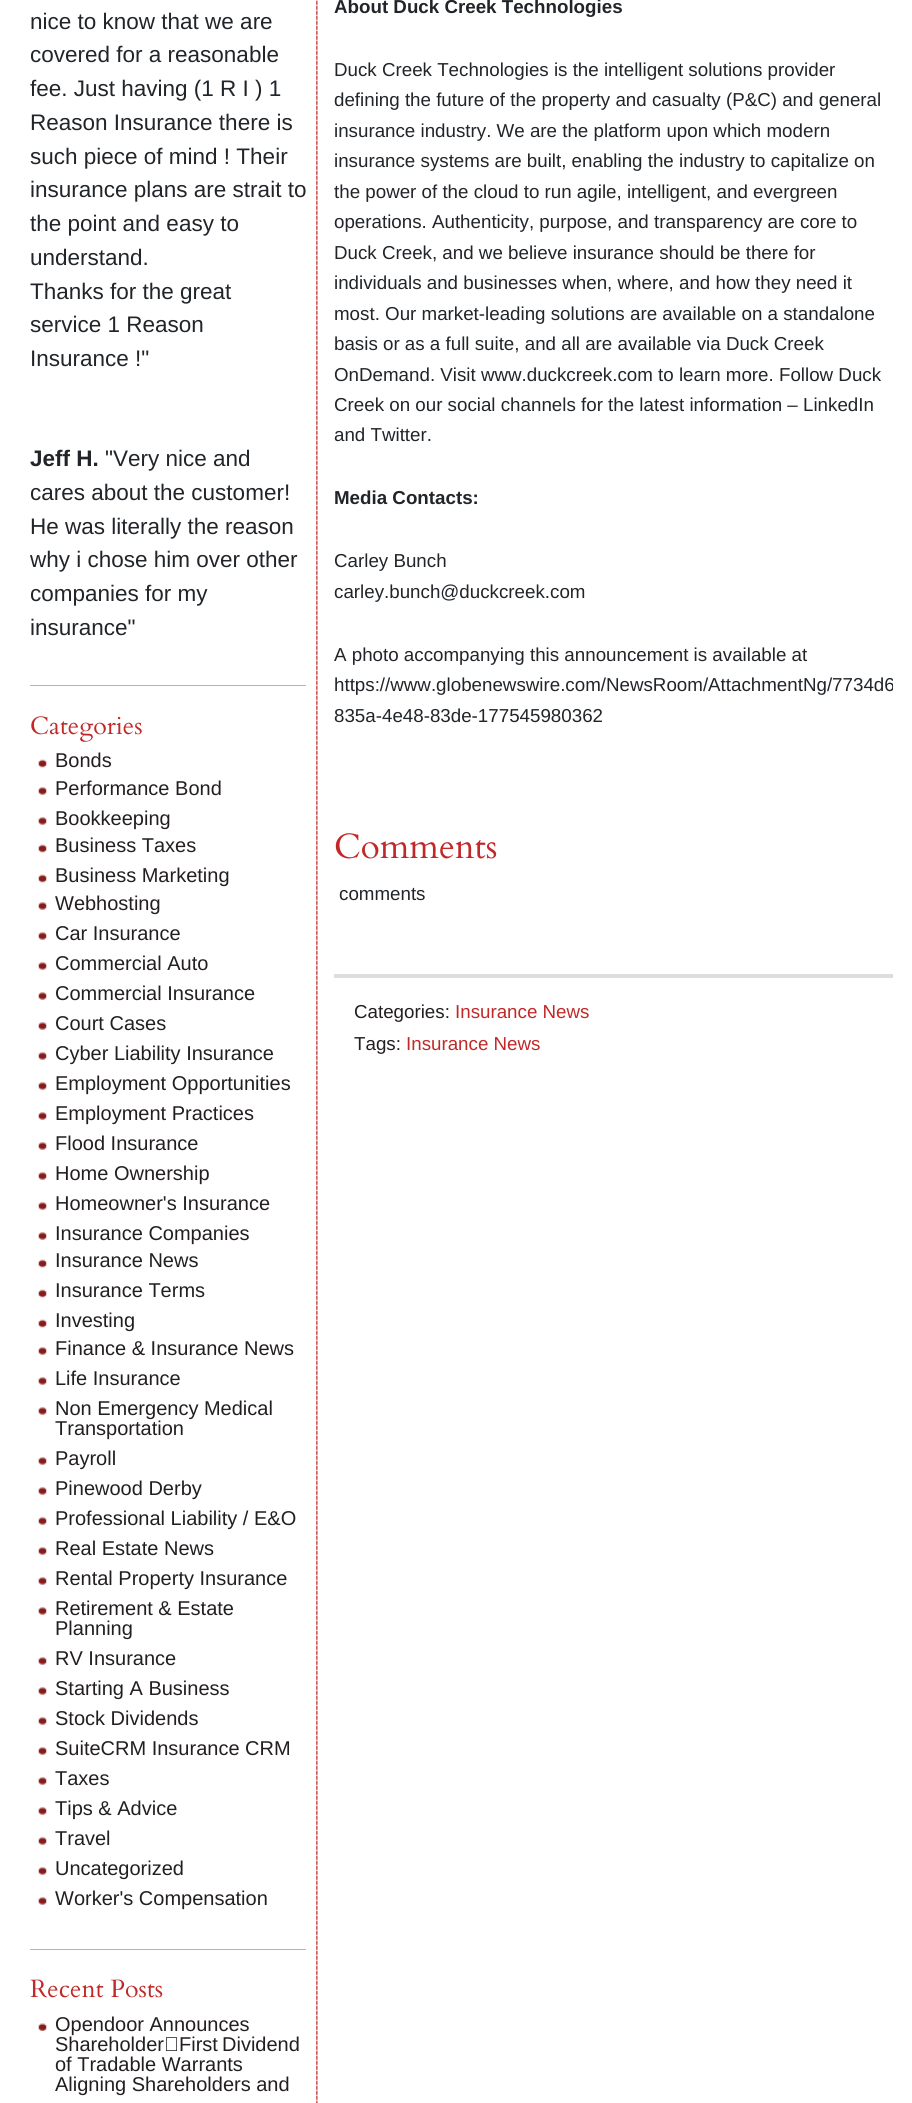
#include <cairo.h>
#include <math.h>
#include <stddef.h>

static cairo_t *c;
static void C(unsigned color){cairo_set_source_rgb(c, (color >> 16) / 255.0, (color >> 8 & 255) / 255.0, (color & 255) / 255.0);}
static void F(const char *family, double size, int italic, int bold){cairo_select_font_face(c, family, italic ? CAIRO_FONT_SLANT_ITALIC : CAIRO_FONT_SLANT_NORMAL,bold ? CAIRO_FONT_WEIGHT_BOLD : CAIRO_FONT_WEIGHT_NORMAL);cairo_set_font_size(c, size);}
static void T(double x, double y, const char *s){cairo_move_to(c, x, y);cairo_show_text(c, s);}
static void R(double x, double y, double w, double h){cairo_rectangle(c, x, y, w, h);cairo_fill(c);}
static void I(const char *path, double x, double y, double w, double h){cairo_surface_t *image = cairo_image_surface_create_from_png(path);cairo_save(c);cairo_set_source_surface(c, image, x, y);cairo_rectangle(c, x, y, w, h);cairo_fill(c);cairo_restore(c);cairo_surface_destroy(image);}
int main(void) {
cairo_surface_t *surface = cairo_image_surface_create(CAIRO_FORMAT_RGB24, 912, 2103);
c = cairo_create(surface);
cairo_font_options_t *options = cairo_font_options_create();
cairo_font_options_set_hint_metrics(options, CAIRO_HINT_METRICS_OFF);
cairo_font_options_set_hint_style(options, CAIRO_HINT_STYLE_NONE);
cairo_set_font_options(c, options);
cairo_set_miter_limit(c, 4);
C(0xffffff);
cairo_paint(c);
I("1.png",316,0,2,2103);
C(0xb3b5b8);
R(30,685,276,1);
F("Liberation Sans",22.5,0,0);
C(0x212529);
T(30,29,"nice to know that we are");
T(30,62,"covered for a reasonable");
T(30,96,"fee. Just having (1 R I ) 1");
T(30,130,"Reason Insurance there is");
T(30,164,"such piece of mind ! Their");
T(30,197,"insurance plans are strait to");
T(30,231,"the point and easy to");
T(30,265,"understand.");
T(30,299,"Thanks for the great");
T(30,332,"service 1 Reason");
T(30,366,"Insurance !\"");
F("Liberation Sans",22.5,0,1);
T(30,466,"Jeff H.");
F("Liberation Sans",22.5,0,0);
T(105,466,"\"Very nice and");
T(30,500,"cares about the customer!");
T(30,534,"He was literally the reason");
T(30,567,"why i chose him over other");
T(30,601,"companies for my");
T(30,635,"insurance\"");
C(0xb3b5b8);
R(30,1949,276,1);
F("Cardo",25,0,0);
C(0xc12929);
T(30,734,"Categories");
I("2.png",38,759,9,9);
F("Liberation Sans",20,0,0);
C(0x231f20);
T(55,767,"Bonds");
I("3.png",38,787,9,8);
T(55,795,"Performance Bond");
I("3.png",38,817,9,8);
T(55,825,"Bookkeeping");
I("2.png",38,844,9,9);
T(55,852,"Business Taxes");
I("2.png",38,874,9,9);
T(55,882,"Business Marketing");
I("3.png",38,902,9,8);
T(55,910,"Webhosting");
I("3.png",38,932,9,8);
T(55,940,"Car Insurance");
I("3.png",38,962,9,8);
T(55,970,"Commercial Auto");
I("3.png",38,992,9,8);
T(55,1000,"Commercial Insurance");
I("3.png",38,1022,9,8);
T(55,1030,"Court Cases");
I("3.png",38,1052,9,8);
T(55,1060,"Cyber Liability Insurance");
I("3.png",38,1082,9,8);
T(55,1090,"Employment Opportunities");
I("3.png",38,1112,9,8);
T(55,1120,"Employment Practices");
I("3.png",38,1142,9,8);
T(55,1150,"Flood Insurance");
I("3.png",38,1172,9,8);
T(55,1180,"Home Ownership");
I("3.png",38,1202,9,8);
T(55,1210,"Homeowner's Insurance");
I("3.png",38,1232,9,8);
T(55,1240,"Insurance Companies");
I("2.png",38,1259,9,9);
T(55,1267,"Insurance News");
I("2.png",38,1289,9,9);
T(55,1297,"Insurance Terms");
I("2.png",38,1319,9,9);
T(55,1327,"Investing");
I("3.png",38,1347,9,8);
T(55,1355,"Finance & Insurance News");
I("3.png",38,1377,9,8);
T(55,1385,"Life Insurance");
I("3.png",38,1407,9,8);
T(55,1415,"Non Emergency Medical");
T(55,1435,"Transportation");
I("3.png",38,1457,9,8);
T(55,1465,"Payroll");
I("3.png",38,1487,9,8);
T(55,1495,"Pinewood Derby");
I("3.png",38,1517,9,8);
T(55,1525,"Professional Liability / E&O");
I("3.png",38,1547,9,8);
T(55,1555,"Real Estate News");
I("3.png",38,1577,9,8);
T(55,1585,"Rental Property Insurance");
I("3.png",38,1607,9,8);
T(55,1615,"Retirement & Estate");
T(55,1635,"Planning");
I("3.png",38,1657,9,8);
T(55,1665,"RV Insurance");
I("3.png",38,1687,9,8);
T(55,1695,"Starting A Business");
I("3.png",38,1717,9,8);
T(55,1725,"Stock Dividends");
I("3.png",38,1747,9,8);
T(55,1755,"SuiteCRM Insurance CRM");
I("3.png",38,1777,9,8);
T(55,1785,"Taxes");
I("3.png",38,1807,9,8);
T(55,1815,"Tips & Advice");
I("3.png",38,1837,9,8);
T(55,1845,"Travel");
I("3.png",38,1867,9,8);
T(55,1875,"Uncategorized");
I("3.png",38,1897,9,8);
T(55,1905,"Worker's Compensation");
F("Cardo",25,0,0);
C(0xc12929);
T(30,1997,"Recent Posts");
I("4.png",38,2023,9,8);
F("Liberation Sans",20,0,0);
C(0x231f20);
T(55,2031,"Opendoor Announces");
T(55,2051,"Shareholder‑First");
T(222,2051,"Dividend");
T(55,2071,"of Tradable Warrants");
T(55,2091,"Aligning Shareholders and");
F("Liberation Sans",18.75,0,1);
C(0x212529);
T(334,13,"About Duck Creek Technologies");
F("Liberation Sans",18.75,0,0);
T(334,76,"Duck Creek Technologies is the intelligent solutions provider");
T(334,106,"defining the future of the property and casualty (P&C) and general");
T(334,137,"insurance industry. We are the platform upon which modern");
T(334,167,"insurance systems are built, enabling the industry to capitalize on");
T(334,198,"the power of the cloud to run agile, intelligent, and evergreen");
T(334,228,"operations. Authenticity, purpose, and transparency are core to");
T(334,259,"Duck Creek, and we believe insurance should be there for");
T(334,289,"individuals and businesses when, where, and how they need it");
T(334,320,"most. Our market-leading solutions are available on a standalone");
T(334,350,"basis or as a full suite, and all are available via Duck Creek");
T(334,381,"OnDemand. Visit www.duckcreek.com to learn more. Follow Duck");
T(334,411,"Creek on our social channels for the latest information – LinkedIn");
T(334,441,"and Twitter.");
F("Liberation Sans",18.75,0,1);
T(334,504,"Media Contacts:");
F("Liberation Sans",18.75,0,0);
T(334,567,"Carley Bunch");
T(334,598,"carley.bunch@duckcreek.com");
T(334,661,"A photo accompanying this announcement is available at");
cairo_save(c);
cairo_rectangle(c,334,0,559,974);
cairo_clip(c);
T(334,691,"https://www.globenewswire.com/NewsRoom/AttachmentNg/7734d6");
cairo_restore(c);
T(334,722,"835a-4e48-83de-177545980362");
F("Cardo",35,0,0);
C(0xc12929);
T(334,858,"Comments");
F("Liberation Sans",18.75,0,0);
C(0x212529);
T(339,900,"comments");
C(0xdcddde);
R(334,974,559,4);
C(0x231f20);
T(354,1018,"Categories:");
C(0xc12929);
T(455,1018,"Insurance News");
C(0x231f20);
T(354,1050,"Tags:");
C(0xc12929);
T(406,1050,"Insurance News");
cairo_surface_write_to_png(surface, "o.png");
cairo_font_options_destroy(options);
cairo_destroy(c);
cairo_surface_destroy(surface);
return 0;
}
